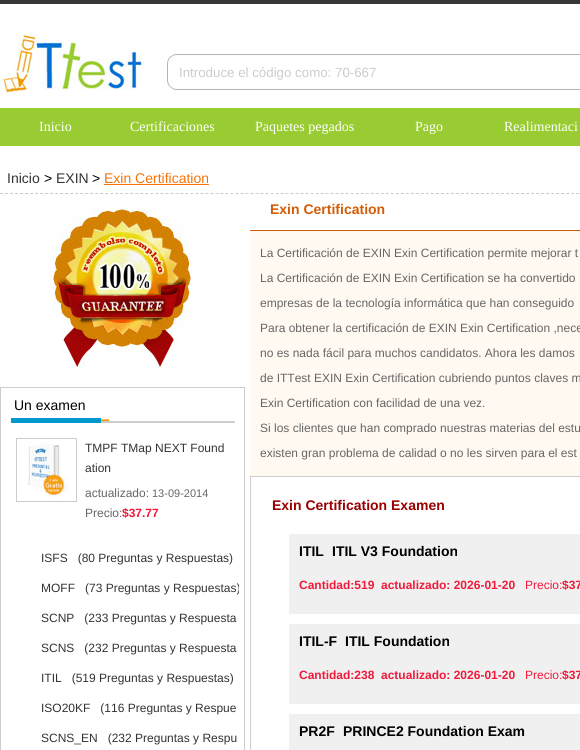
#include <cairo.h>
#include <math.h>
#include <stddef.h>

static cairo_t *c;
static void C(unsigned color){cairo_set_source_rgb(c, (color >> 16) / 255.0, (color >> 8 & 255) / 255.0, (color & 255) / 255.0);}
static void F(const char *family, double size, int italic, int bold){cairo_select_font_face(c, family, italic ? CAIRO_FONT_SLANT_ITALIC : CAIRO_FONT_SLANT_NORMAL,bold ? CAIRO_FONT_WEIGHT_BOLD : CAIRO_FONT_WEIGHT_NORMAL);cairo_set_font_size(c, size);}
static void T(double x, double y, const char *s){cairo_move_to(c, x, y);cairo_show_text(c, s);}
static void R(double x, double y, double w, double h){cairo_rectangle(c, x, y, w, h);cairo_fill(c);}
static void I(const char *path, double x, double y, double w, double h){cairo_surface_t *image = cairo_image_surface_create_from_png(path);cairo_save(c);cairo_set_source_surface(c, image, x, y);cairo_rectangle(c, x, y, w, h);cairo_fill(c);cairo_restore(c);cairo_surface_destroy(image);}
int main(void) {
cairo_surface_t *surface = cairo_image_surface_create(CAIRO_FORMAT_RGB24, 580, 750);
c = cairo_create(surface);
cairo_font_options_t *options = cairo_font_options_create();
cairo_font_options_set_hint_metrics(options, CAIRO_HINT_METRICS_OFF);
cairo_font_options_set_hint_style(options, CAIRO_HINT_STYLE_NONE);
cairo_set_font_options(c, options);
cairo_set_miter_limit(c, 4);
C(0xffffff);
cairo_paint(c);
C(0x373737);
R(0,0,580,4);
I("1.png",0,34,144,62);
I("2.png",167,54,413,36);
F("Liberation Sans",13.3,0,0);
C(0xcccccc);
T(179,77,"Introduce el código como: 70-667");
C(0x99cc33);
R(0,108,580,38);
F("Liberation Serif",14,0,0);
C(0xffffff);
T(39,131,"Inicio");
T(130,131,"Certificaciones");
T(255,131,"Paquetes pegados");
T(415,131,"Pago");
T(504,131,"Realimentaci");
cairo_new_path(c);
cairo_move_to(c,0,193.5);
cairo_line_to(c,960,193.5);
C(0xcccccc);
cairo_set_line_width(c,1);
cairo_set_dash(c,(double[]){3,2.01},2,0);
cairo_stroke(c);
F("Liberation Sans",14,0,0);
C(0x333333);
T(7,183,"Inicio");
C(0x000000);
T(44,183,">");
C(0x333333);
T(56,183,"EXIN");
C(0x000000);
T(92,183,">");
C(0xf77306);
T(104,183,"Exin Certification");
R(104,184,105,1);
I("3.png",53,209,139,158);
cairo_rectangle(c,.5,387.5,244,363);
C(0xcccccc);
cairo_set_dash(c,NULL,0,0);
cairo_stroke(c);
I("4.png",11,418,224,5);
C(0x000000);
T(14,410,"Un examen");
cairo_rectangle(c,16.5,438.5,60,63);
C(0xcccccc);
cairo_stroke(c);
I("5.png",27,443,42,54);
F("Liberation Sans",12,0,0);
C(0x333333);
T(85,452,"TMPF TMap NEXT Found");
T(85,472,"ation");
C(0x666666);
T(85,497,"actualizado:");
F("Liberation Sans",11,0,0);
T(152,497,"13-09-2014");
F("Liberation Sans",12,0,0);
T(85,517,"Precio:");
F("Liberation Sans",12,0,1);
C(0xf11a3b);
T(122,517,"$37.77");
F("Liberation Sans",12,0,0);
C(0x333333);
T(41,562,"ISFS   (80 Preguntas y Respuestas)");
cairo_save(c);
cairo_rectangle(c,6,573,233,30);
cairo_clip(c);
T(41,592,"MOFF   (73 Preguntas y Respuestas)");
cairo_restore(c);
T(41,622,"SCNP   (233 Preguntas y Respuesta");
T(41,652,"SCNS   (232 Preguntas y Respuesta");
T(41,682,"ITIL   (519 Preguntas y Respuestas)");
T(41,712,"ISO20KF   (116 Preguntas y Respue");
T(41,742,"SCNS_EN   (232 Preguntas y Respu");
C(0xd45c05);
R(250,230,330,1);
F("Liberation Sans",14,0,1);
T(270,214,"Exin Certification");
C(0xfff9f1);
R(250,231,330,245);
F("Liberation Sans",12,0,0);
C(0x666666);
T(260,257,"La Certificación de EXIN Exin Certification permite mejorar t");
T(260,282,"La Certificación de EXIN Exin Certification se ha convertido");
T(260,307,"empresas de la tecnología informática que han conseguido");
T(260,332,"Para obtener la certificación de EXIN Exin Certification ,nece");
T(260,357,"no es nada fácil para muchos candidatos. Ahora les damos");
T(260,382,"de ITTest EXIN Exin Certification cubriendo puntos claves m");
T(260,407,"Exin Certification con facilidad de una vez.");
T(260,432,"Si los clientes que han comprado nuestras materias del estu");
T(260,457,"existen gran problema de calidad o no les sirven para el est");
cairo_rectangle(c,250.5,476.5,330,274);
C(0xcccccc);
cairo_stroke(c);
F("Liberation Sans",14,0,1);
C(0x990000);
T(272,510,"Exin Certification Examen");
C(0xf0f0f0);
R(289,534,291,80);
C(0x000000);
T(299,556,"ITIL");
T(332,556,"ITIL V3 Foundation");
F("Liberation Sans",12,0,1);
C(0xf11a3b);
T(299,589,"Cantidad:519  actualizado: 2026-01-20");
F("Liberation Sans",12,0,0);
T(525,589,"Precio:");
F("Liberation Sans",12,0,1);
T(562,589,"$37");
C(0xf0f0f0);
R(289,624,291,80);
F("Liberation Sans",14,0,1);
C(0x000000);
T(299,646,"ITIL-F");
T(345,646,"ITIL Foundation");
F("Liberation Sans",12,0,1);
C(0xf11a3b);
T(299,679,"Cantidad:238  actualizado: 2026-01-20");
F("Liberation Sans",12,0,0);
T(525,679,"Precio:");
F("Liberation Sans",12,0,1);
T(562,679,"$37");
C(0xf0f0f0);
R(289,714,291,36);
F("Liberation Sans",14,0,1);
C(0x000000);
T(299,736,"PR2F");
T(343,736,"PRINCE2 Foundation Exam");
cairo_surface_write_to_png(surface, "o.png");
cairo_font_options_destroy(options);
cairo_destroy(c);
cairo_surface_destroy(surface);
return 0;
}
